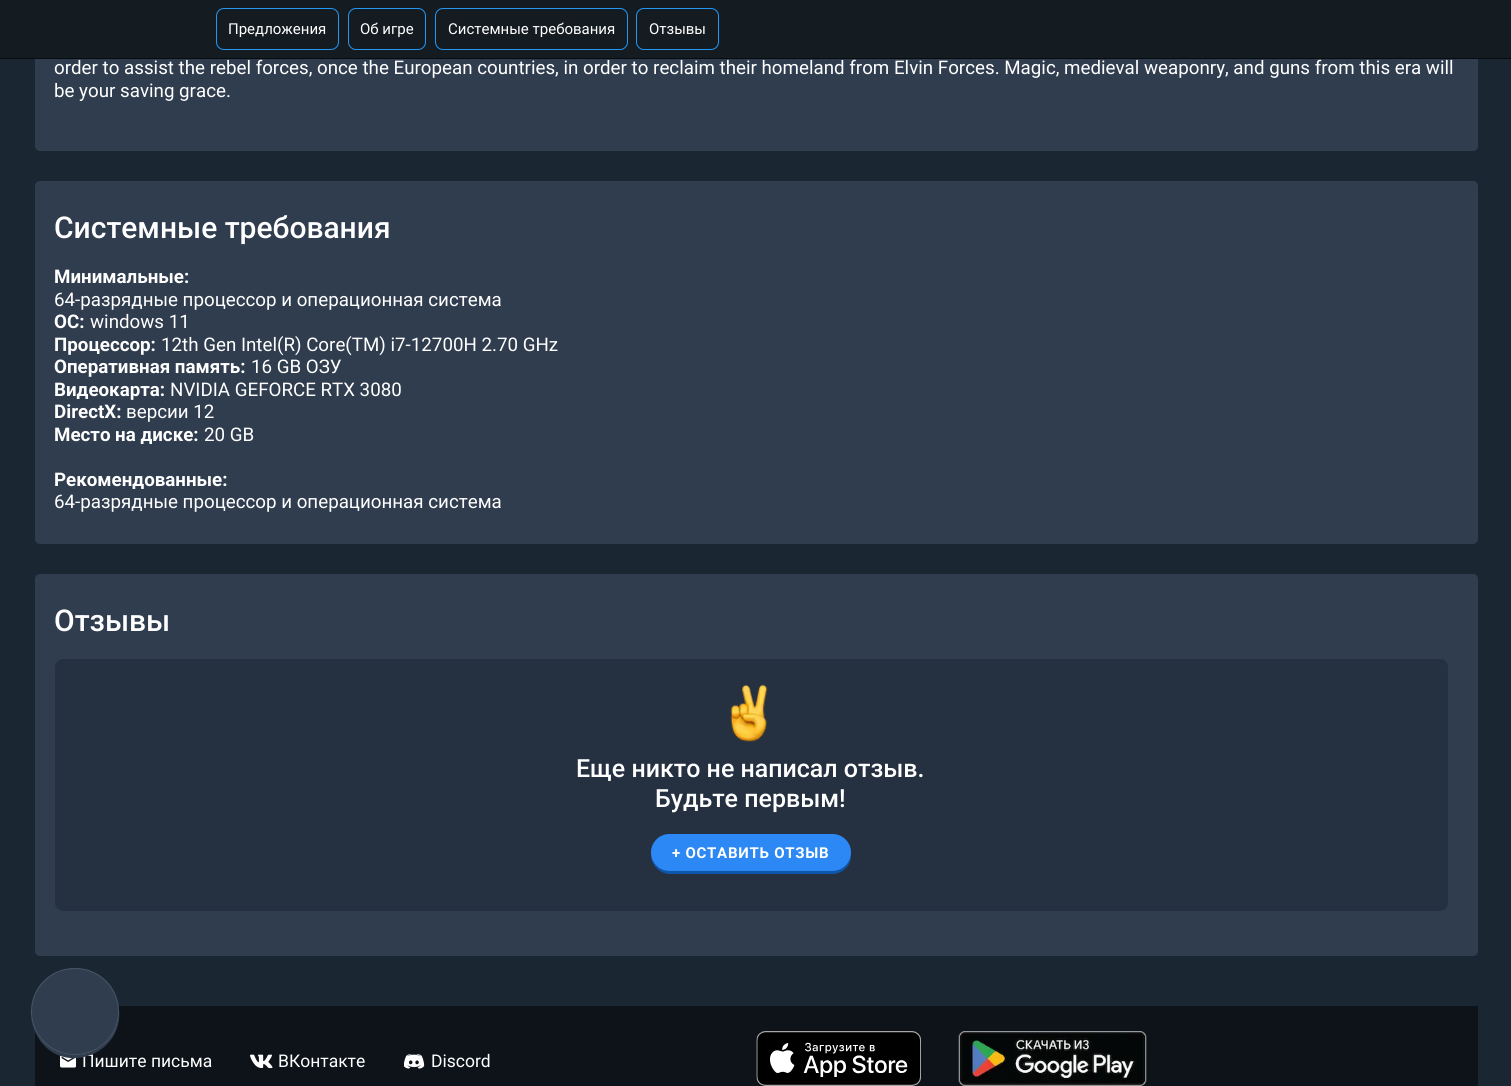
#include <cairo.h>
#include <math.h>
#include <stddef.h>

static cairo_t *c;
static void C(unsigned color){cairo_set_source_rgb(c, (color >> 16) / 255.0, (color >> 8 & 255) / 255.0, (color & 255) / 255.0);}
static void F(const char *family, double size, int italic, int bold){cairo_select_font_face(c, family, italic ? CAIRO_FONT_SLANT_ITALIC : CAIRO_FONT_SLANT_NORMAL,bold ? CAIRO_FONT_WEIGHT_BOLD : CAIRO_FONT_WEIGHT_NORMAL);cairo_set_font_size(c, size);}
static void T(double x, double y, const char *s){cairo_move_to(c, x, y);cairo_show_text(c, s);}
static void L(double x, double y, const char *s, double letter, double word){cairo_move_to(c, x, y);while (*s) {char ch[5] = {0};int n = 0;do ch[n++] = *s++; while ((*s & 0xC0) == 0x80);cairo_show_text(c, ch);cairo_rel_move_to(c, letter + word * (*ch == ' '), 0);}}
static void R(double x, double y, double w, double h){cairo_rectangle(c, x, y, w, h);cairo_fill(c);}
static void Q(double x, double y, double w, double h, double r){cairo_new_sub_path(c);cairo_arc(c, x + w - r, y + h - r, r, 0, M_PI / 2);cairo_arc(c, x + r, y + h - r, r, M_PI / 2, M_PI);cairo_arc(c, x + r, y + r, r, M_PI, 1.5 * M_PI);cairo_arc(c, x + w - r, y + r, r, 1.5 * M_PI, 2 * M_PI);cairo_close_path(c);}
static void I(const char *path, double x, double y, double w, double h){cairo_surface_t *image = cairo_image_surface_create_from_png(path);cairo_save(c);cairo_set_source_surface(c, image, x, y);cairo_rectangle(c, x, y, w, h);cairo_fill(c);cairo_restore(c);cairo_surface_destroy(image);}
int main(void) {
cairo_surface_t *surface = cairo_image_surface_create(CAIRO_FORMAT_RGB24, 1511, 1086);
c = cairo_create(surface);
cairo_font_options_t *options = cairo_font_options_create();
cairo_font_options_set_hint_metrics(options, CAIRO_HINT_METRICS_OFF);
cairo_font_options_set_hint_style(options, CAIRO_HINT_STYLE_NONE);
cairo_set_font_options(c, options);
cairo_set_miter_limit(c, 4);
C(0x1a2632);
cairo_paint(c);
C(0x303d4f);
Q(35,-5,1443,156,5);
cairo_fill(c);
C(0x141c22);
R(0,0,1511,58);
Q(216.5,8.5,122,41,7.5);
C(0x2196f3);
cairo_set_line_width(c,1);
cairo_stroke(c);
F("Roboto",15,0,0);
C(0xffffff);
T(228,34,"Предложения");
Q(348.5,8.5,77,41,7.5);
C(0x2196f3);
cairo_stroke(c);
C(0xffffff);
T(360,34,"Об игре");
Q(435.5,8.5,192,41,7.5);
C(0x2196f3);
cairo_stroke(c);
C(0xffffff);
T(448,34,"Системные требования");
Q(636.5,8.5,82,41,7.5);
C(0x2196f3);
cairo_stroke(c);
C(0xffffff);
T(649,34,"Отзывы");
F("Roboto",18.75,0,0);
T(54,74,"order to assist the rebel forces, once the European countries, in order to reclaim their homeland from Elvin Forces. Magic, medieval weaponry, and guns from this era will");
T(54,97,"be your saving grace.");
C(0x303d4f);
Q(35,181,1443,363,5);
cairo_fill(c);
F("Roboto Medium",30,0,0);
C(0xffffff);
T(54,238,"Системные требования");
F("Roboto",18.75,0,1);
T(54,283,"Минимальные:");
F("Roboto",18.75,0,0);
T(54,306,"64-разрядные процессор и операционная система");
F("Roboto",18.75,0,1);
T(54,328,"ОС:");
F("Roboto",18.75,0,0);
T(90,328,"windows 11");
F("Roboto",18.75,0,1);
T(54,351,"Процессор:");
F("Roboto",18.75,0,0);
T(161,351,"12th Gen Intel(R) Core(TM) i7-12700H 2.70 GHz");
F("Roboto",18.75,0,1);
T(54,373,"Оперативная память:");
F("Roboto",18.75,0,0);
T(251,373,"16 GB ОЗУ");
F("Roboto",18.75,0,1);
T(54,396,"Видеокарта:");
F("Roboto",18.75,0,0);
T(170,396,"NVIDIA GEFORCE RTX 3080");
F("Roboto",18.75,0,1);
T(54,418,"DirectX:");
F("Roboto",18.75,0,0);
T(126,418,"версии 12");
F("Roboto",18.75,0,1);
T(54,441,"Место на диске:");
F("Roboto",18.75,0,0);
T(204,441,"20 GB");
F("Roboto",18.75,0,1);
T(54,486,"Рекомендованные:");
F("Roboto",18.75,0,0);
T(54,508,"64-разрядные процессор и операционная система");
C(0x303d4f);
Q(35,574,1443,382,5);
cairo_fill(c);
F("Roboto Medium",30,0,0);
C(0xffffff);
T(54,631,"Отзывы");
C(0x253141);
Q(55,659,1393,252,8);
cairo_fill(c);
I("1.png",730,684,38,58);
F("Roboto Medium",25,0,0);
C(0xffffff);
T(576,777,"Еще никто не написал отзыв.");
T(655,807,"Будьте первым!");
C(0x0e56ab);
cairo_new_path(c);
cairo_move_to(c,651,852);
cairo_line_to(c,651,855);
cairo_curve_to(c,651,865,660,874,670,874);
cairo_line_to(c,832,874);
cairo_curve_to(c,842,874,851,866,851,856);
cairo_curve_to(c,849,864,842,871,832,871);
cairo_line_to(c,670,871);
cairo_curve_to(c,660,871,651,863,651,852);
cairo_close_path(c);
cairo_fill(c);
C(0x2c88f4);
Q(651,834,200,37,18.5);
cairo_fill(c);
F("Roboto",15,0,1);
C(0xffffff);
L(672,858,"+ ОСТАВИТЬ ОТЗЫВ",.75,0);
C(0x0d1319);
R(35,1006,1443,80);
I("2.png",60,1055,16,13);
F("Roboto",17.5,0,0);
C(0xffffff);
T(82,1067,"Пишите письма");
I("3.png",250,1054,23,15);
T(278,1067,"ВКонтакте");
I("4.png",404,1054,21,15);
T(431,1067,"Discord");
I("5.png",756,1031,165,55);
I("6.png",958,1031,189,55);
C(0x080c0f);
R(0,58,1511,1);
C(0x303d4f);
cairo_new_path(c);
cairo_move_to(c,31,1009);
cairo_curve_to(c,30,1019,33,1030,39,1039);
cairo_curve_to(c,64,1077,124,1054,119,1009);
cairo_curve_to(c,119,1018,117,1028,111,1036);
cairo_curve_to(c,87,1072,29,1053,31,1009);
cairo_close_path(c);
cairo_fill(c);
Q(31.5,968.5,87,86,43);
cairo_fill_preserve(c);
C(0x495565);
cairo_stroke(c);
cairo_surface_write_to_png(surface, "o.png");
cairo_font_options_destroy(options);
cairo_destroy(c);
cairo_surface_destroy(surface);
return 0;
}
